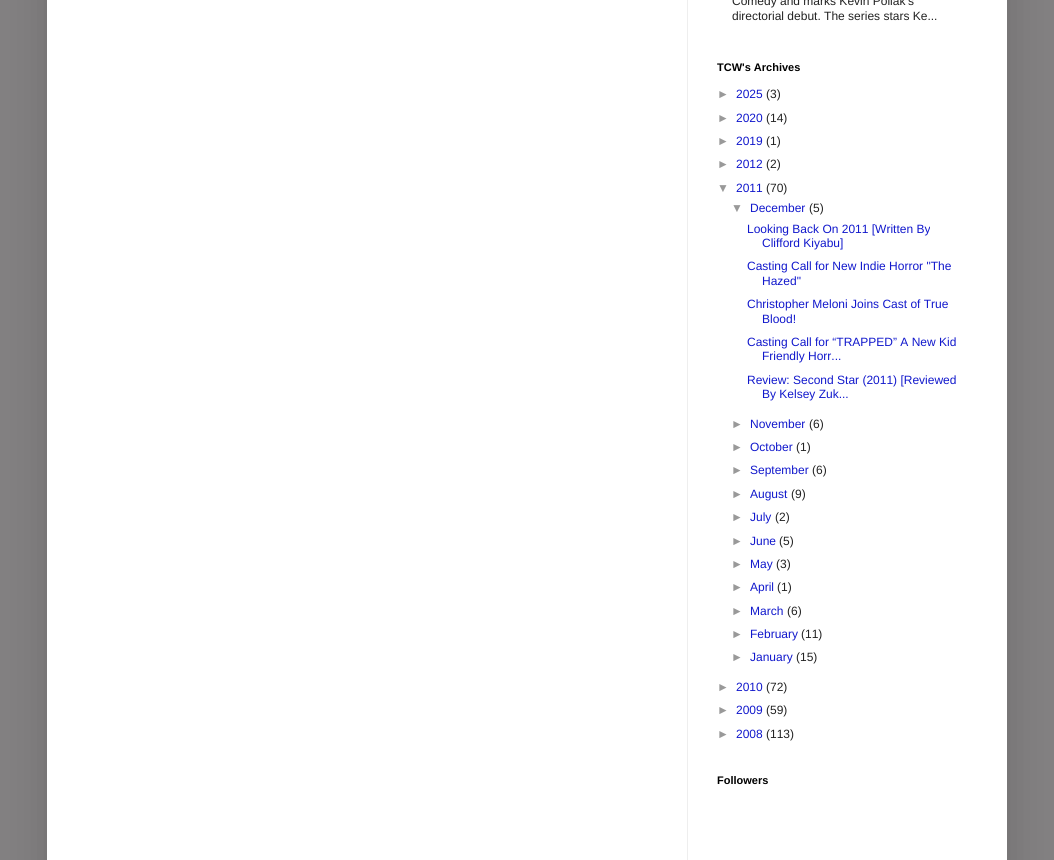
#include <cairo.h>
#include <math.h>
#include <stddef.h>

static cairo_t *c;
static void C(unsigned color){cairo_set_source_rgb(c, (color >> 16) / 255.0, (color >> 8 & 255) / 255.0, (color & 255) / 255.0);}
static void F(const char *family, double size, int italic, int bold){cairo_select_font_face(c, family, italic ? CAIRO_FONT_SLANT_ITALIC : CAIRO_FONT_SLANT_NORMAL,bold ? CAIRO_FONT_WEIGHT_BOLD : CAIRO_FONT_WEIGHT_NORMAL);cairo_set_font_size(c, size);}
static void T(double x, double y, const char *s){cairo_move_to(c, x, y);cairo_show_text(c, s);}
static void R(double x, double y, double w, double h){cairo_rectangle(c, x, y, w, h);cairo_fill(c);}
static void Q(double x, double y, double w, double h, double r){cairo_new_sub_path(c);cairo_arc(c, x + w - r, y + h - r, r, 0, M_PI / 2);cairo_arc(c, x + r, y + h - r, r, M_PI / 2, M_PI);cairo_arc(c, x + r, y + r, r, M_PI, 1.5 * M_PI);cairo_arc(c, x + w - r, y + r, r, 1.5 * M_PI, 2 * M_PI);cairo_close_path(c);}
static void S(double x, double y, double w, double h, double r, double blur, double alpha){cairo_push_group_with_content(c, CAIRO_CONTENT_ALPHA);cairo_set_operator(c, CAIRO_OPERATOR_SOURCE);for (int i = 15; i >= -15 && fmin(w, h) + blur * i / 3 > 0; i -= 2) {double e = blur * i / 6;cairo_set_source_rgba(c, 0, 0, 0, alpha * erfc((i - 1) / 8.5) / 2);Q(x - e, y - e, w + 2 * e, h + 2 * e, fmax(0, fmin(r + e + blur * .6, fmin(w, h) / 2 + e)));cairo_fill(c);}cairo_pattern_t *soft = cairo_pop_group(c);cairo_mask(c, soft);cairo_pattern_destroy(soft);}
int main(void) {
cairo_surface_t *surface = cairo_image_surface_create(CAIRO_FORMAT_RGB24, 1054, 860);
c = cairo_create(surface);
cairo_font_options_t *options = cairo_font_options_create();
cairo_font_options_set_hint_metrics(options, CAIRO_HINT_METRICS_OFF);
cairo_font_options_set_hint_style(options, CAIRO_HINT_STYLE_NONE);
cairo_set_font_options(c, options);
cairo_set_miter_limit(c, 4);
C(0x828081);
cairo_paint(c);
C(0x000000);
S(47,-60,960,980,0,20,.15);
C(0xffffff);
R(47,0,960,860);
C(0xeeeeee);
R(687,0,1,860);
F("Liberation Sans",12,0,0);
C(0x222222);
T(732,5,"Comedy and marks Kevin Pollak’s");
T(732,20,"directorial debut. The series stars Ke...");
F("Liberation Sans",11,0,1);
C(0x000000);
T(717,71,"TCW's Archives");
F("Liberation Sans",12,0,0);
C(0x999999);
T(717,98,"►");
C(0x1118cc);
T(736,98,"2025");
C(0x222222);
T(766,98,"(3)");
C(0x999999);
T(717,122,"►");
C(0x1118cc);
T(736,122,"2020");
C(0x222222);
T(766,122,"(14)");
C(0x999999);
T(717,145,"►");
C(0x1118cc);
T(736,145,"2019");
C(0x222222);
T(766,145,"(1)");
C(0x999999);
T(717,168,"►");
C(0x1118cc);
T(736,168,"2012");
C(0x222222);
T(766,168,"(2)");
C(0x999999);
T(717,192,"▼");
C(0x1118cc);
T(736,192,"2011");
C(0x222222);
T(766,192,"(70)");
C(0x999999);
T(731,212,"▼");
C(0x1118cc);
T(750,212,"December");
C(0x222222);
T(809,212,"(5)");
C(0x1118cc);
T(747,233,"Looking Back On 2011 [Written By");
T(762,247,"Clifford Kiyabu]");
T(747,270,"Casting Call for New Indie Horror \"The");
T(762,285,"Hazed\"");
T(747,308,"Christopher Meloni Joins Cast of True");
T(762,323,"Blood!");
T(747,346,"Casting Call for “TRAPPED” A New Kid");
T(762,360,"Friendly Horr...");
T(747,384,"Review: Second Star (2011) [Reviewed");
T(762,398,"By Kelsey Zuk...");
C(0x999999);
T(731,428,"►");
C(0x1118cc);
T(750,428,"November");
C(0x222222);
T(809,428,"(6)");
C(0x999999);
T(731,451,"►");
C(0x1118cc);
T(750,451,"October");
C(0x222222);
T(796,451,"(1)");
C(0x999999);
T(731,474,"►");
C(0x1118cc);
T(750,474,"September");
C(0x222222);
T(812,474,"(6)");
C(0x999999);
T(731,498,"►");
C(0x1118cc);
T(750,498,"August");
C(0x222222);
T(791,498,"(9)");
C(0x999999);
T(731,521,"►");
C(0x1118cc);
T(750,521,"July");
C(0x222222);
T(775,521,"(2)");
C(0x999999);
T(731,545,"►");
C(0x1118cc);
T(750,545,"June");
C(0x222222);
T(779,545,"(5)");
C(0x999999);
T(731,568,"►");
C(0x1118cc);
T(750,568,"May");
C(0x222222);
T(776,568,"(3)");
C(0x999999);
T(731,591,"►");
C(0x1118cc);
T(750,591,"April");
C(0x222222);
T(777,591,"(1)");
C(0x999999);
T(731,615,"►");
C(0x1118cc);
T(750,615,"March");
C(0x222222);
T(787,615,"(6)");
C(0x999999);
T(731,638,"►");
C(0x1118cc);
T(750,638,"February");
C(0x222222);
T(801,638,"(11)");
C(0x999999);
T(731,661,"►");
C(0x1118cc);
T(750,661,"January");
C(0x222222);
T(796,661,"(15)");
C(0x999999);
T(717,691,"►");
C(0x1118cc);
T(736,691,"2010");
C(0x222222);
T(766,691,"(72)");
C(0x999999);
T(717,714,"►");
C(0x1118cc);
T(736,714,"2009");
C(0x222222);
T(766,714,"(59)");
C(0x999999);
T(717,738,"►");
C(0x1118cc);
T(736,738,"2008");
C(0x222222);
T(766,738,"(113)");
F("Liberation Sans",11,0,1);
C(0x000000);
T(717,784,"Followers");
cairo_surface_write_to_png(surface, "o.png");
cairo_font_options_destroy(options);
cairo_destroy(c);
cairo_surface_destroy(surface);
return 0;
}
